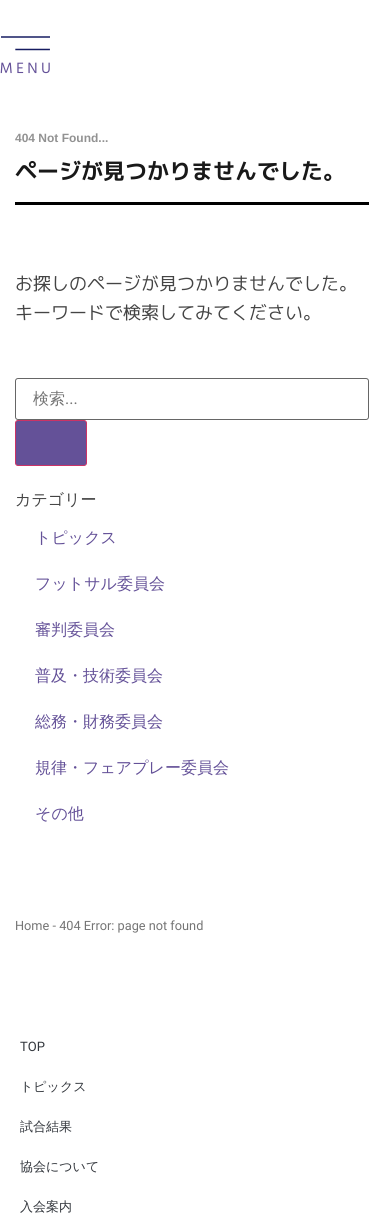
#include <cairo.h>
#include <math.h>
#include <stddef.h>

static cairo_t *c;
static void C(unsigned color){cairo_set_source_rgb(c, (color >> 16) / 255.0, (color >> 8 & 255) / 255.0, (color & 255) / 255.0);}
static void F(const char *family, double size, int italic, int bold){cairo_select_font_face(c, family, italic ? CAIRO_FONT_SLANT_ITALIC : CAIRO_FONT_SLANT_NORMAL,bold ? CAIRO_FONT_WEIGHT_BOLD : CAIRO_FONT_WEIGHT_NORMAL);cairo_set_font_size(c, size);}
static void T(double x, double y, const char *s){cairo_move_to(c, x, y);cairo_show_text(c, s);}
static void R(double x, double y, double w, double h){cairo_rectangle(c, x, y, w, h);cairo_fill(c);}
static void Q(double x, double y, double w, double h, double r){cairo_new_sub_path(c);cairo_arc(c, x + w - r, y + h - r, r, 0, M_PI / 2);cairo_arc(c, x + r, y + h - r, r, M_PI / 2, M_PI);cairo_arc(c, x + r, y + r, r, M_PI, 1.5 * M_PI);cairo_arc(c, x + w - r, y + r, r, 1.5 * M_PI, 2 * M_PI);cairo_close_path(c);}
static void I(const char *path, double x, double y, double w, double h){cairo_surface_t *image = cairo_image_surface_create_from_png(path);cairo_save(c);cairo_set_source_surface(c, image, x, y);cairo_rectangle(c, x, y, w, h);cairo_fill(c);cairo_restore(c);cairo_surface_destroy(image);}
int main(void) {
cairo_surface_t *surface = cairo_image_surface_create(CAIRO_FORMAT_RGB24, 384, 1223);
c = cairo_create(surface);
cairo_font_options_t *options = cairo_font_options_create();
cairo_font_options_set_hint_metrics(options, CAIRO_HINT_METRICS_OFF);
cairo_font_options_set_hint_style(options, CAIRO_HINT_STYLE_NONE);
cairo_set_font_options(c, options);
cairo_set_miter_limit(c, 4);
C(0xffffff);
cairo_paint(c);
I("1.png",0,36,50,38);
F("Liberation Sans",12,0,1);
C(0x929292);
T(15,142,"404 Not Found...");
F("M PLUS 1p",22,0,1);
C(0x191919);
T(15,179,"ページが見つかりませんでした。");
C(0x000000);
R(15,202,354,3);
F("M PLUS 1p",18,0,0);
C(0x444444);
T(15,290,"お探しのページが見つかりませんでした。");
T(15,319,"キーワードで検索してみてください。");
Q(15.5,378.5,353,41,2.5);
C(0x666666);
cairo_set_line_width(c,1);
cairo_stroke(c);
F("WenQuanYi Zen Hei Medium",16,0,0);
C(0x757575);
T(33,404,"検索");
F("Roboto",16,0,0);
T(65,404,"...");
C(0x645198);
Q(15.5,420.5,71,45,2.5);
cairo_fill_preserve(c);
C(0xcc3366);
cairo_stroke(c);
F("WenQuanYi Zen Hei Medium",16,0,0);
C(0x444444);
T(15,505,"カテゴリー");
C(0x645198);
T(35,543,"トピックス");
T(35,589,"フットサル委員会");
T(35,635,"審判委員会");
T(35,681,"普及・技術委員会");
T(35,727,"総務・財務委員会");
T(35,773,"規律・フェアプレー委員会");
T(35,819,"その他");
F("Roboto",12.75,0,0);
C(0x757575);
T(15,930,"Home - 404 Error: page not found");
F("Roboto",13,0,0);
C(0x33373d);
T(20,1051,"TOP");
F("WenQuanYi Zen Hei Medium",13,0,0);
T(20,1091,"トピックス");
T(20,1131,"試合結果");
T(20,1171,"協会について");
T(20,1211,"入会案内");
cairo_surface_write_to_png(surface, "o.png");
cairo_font_options_destroy(options);
cairo_destroy(c);
cairo_surface_destroy(surface);
return 0;
}
